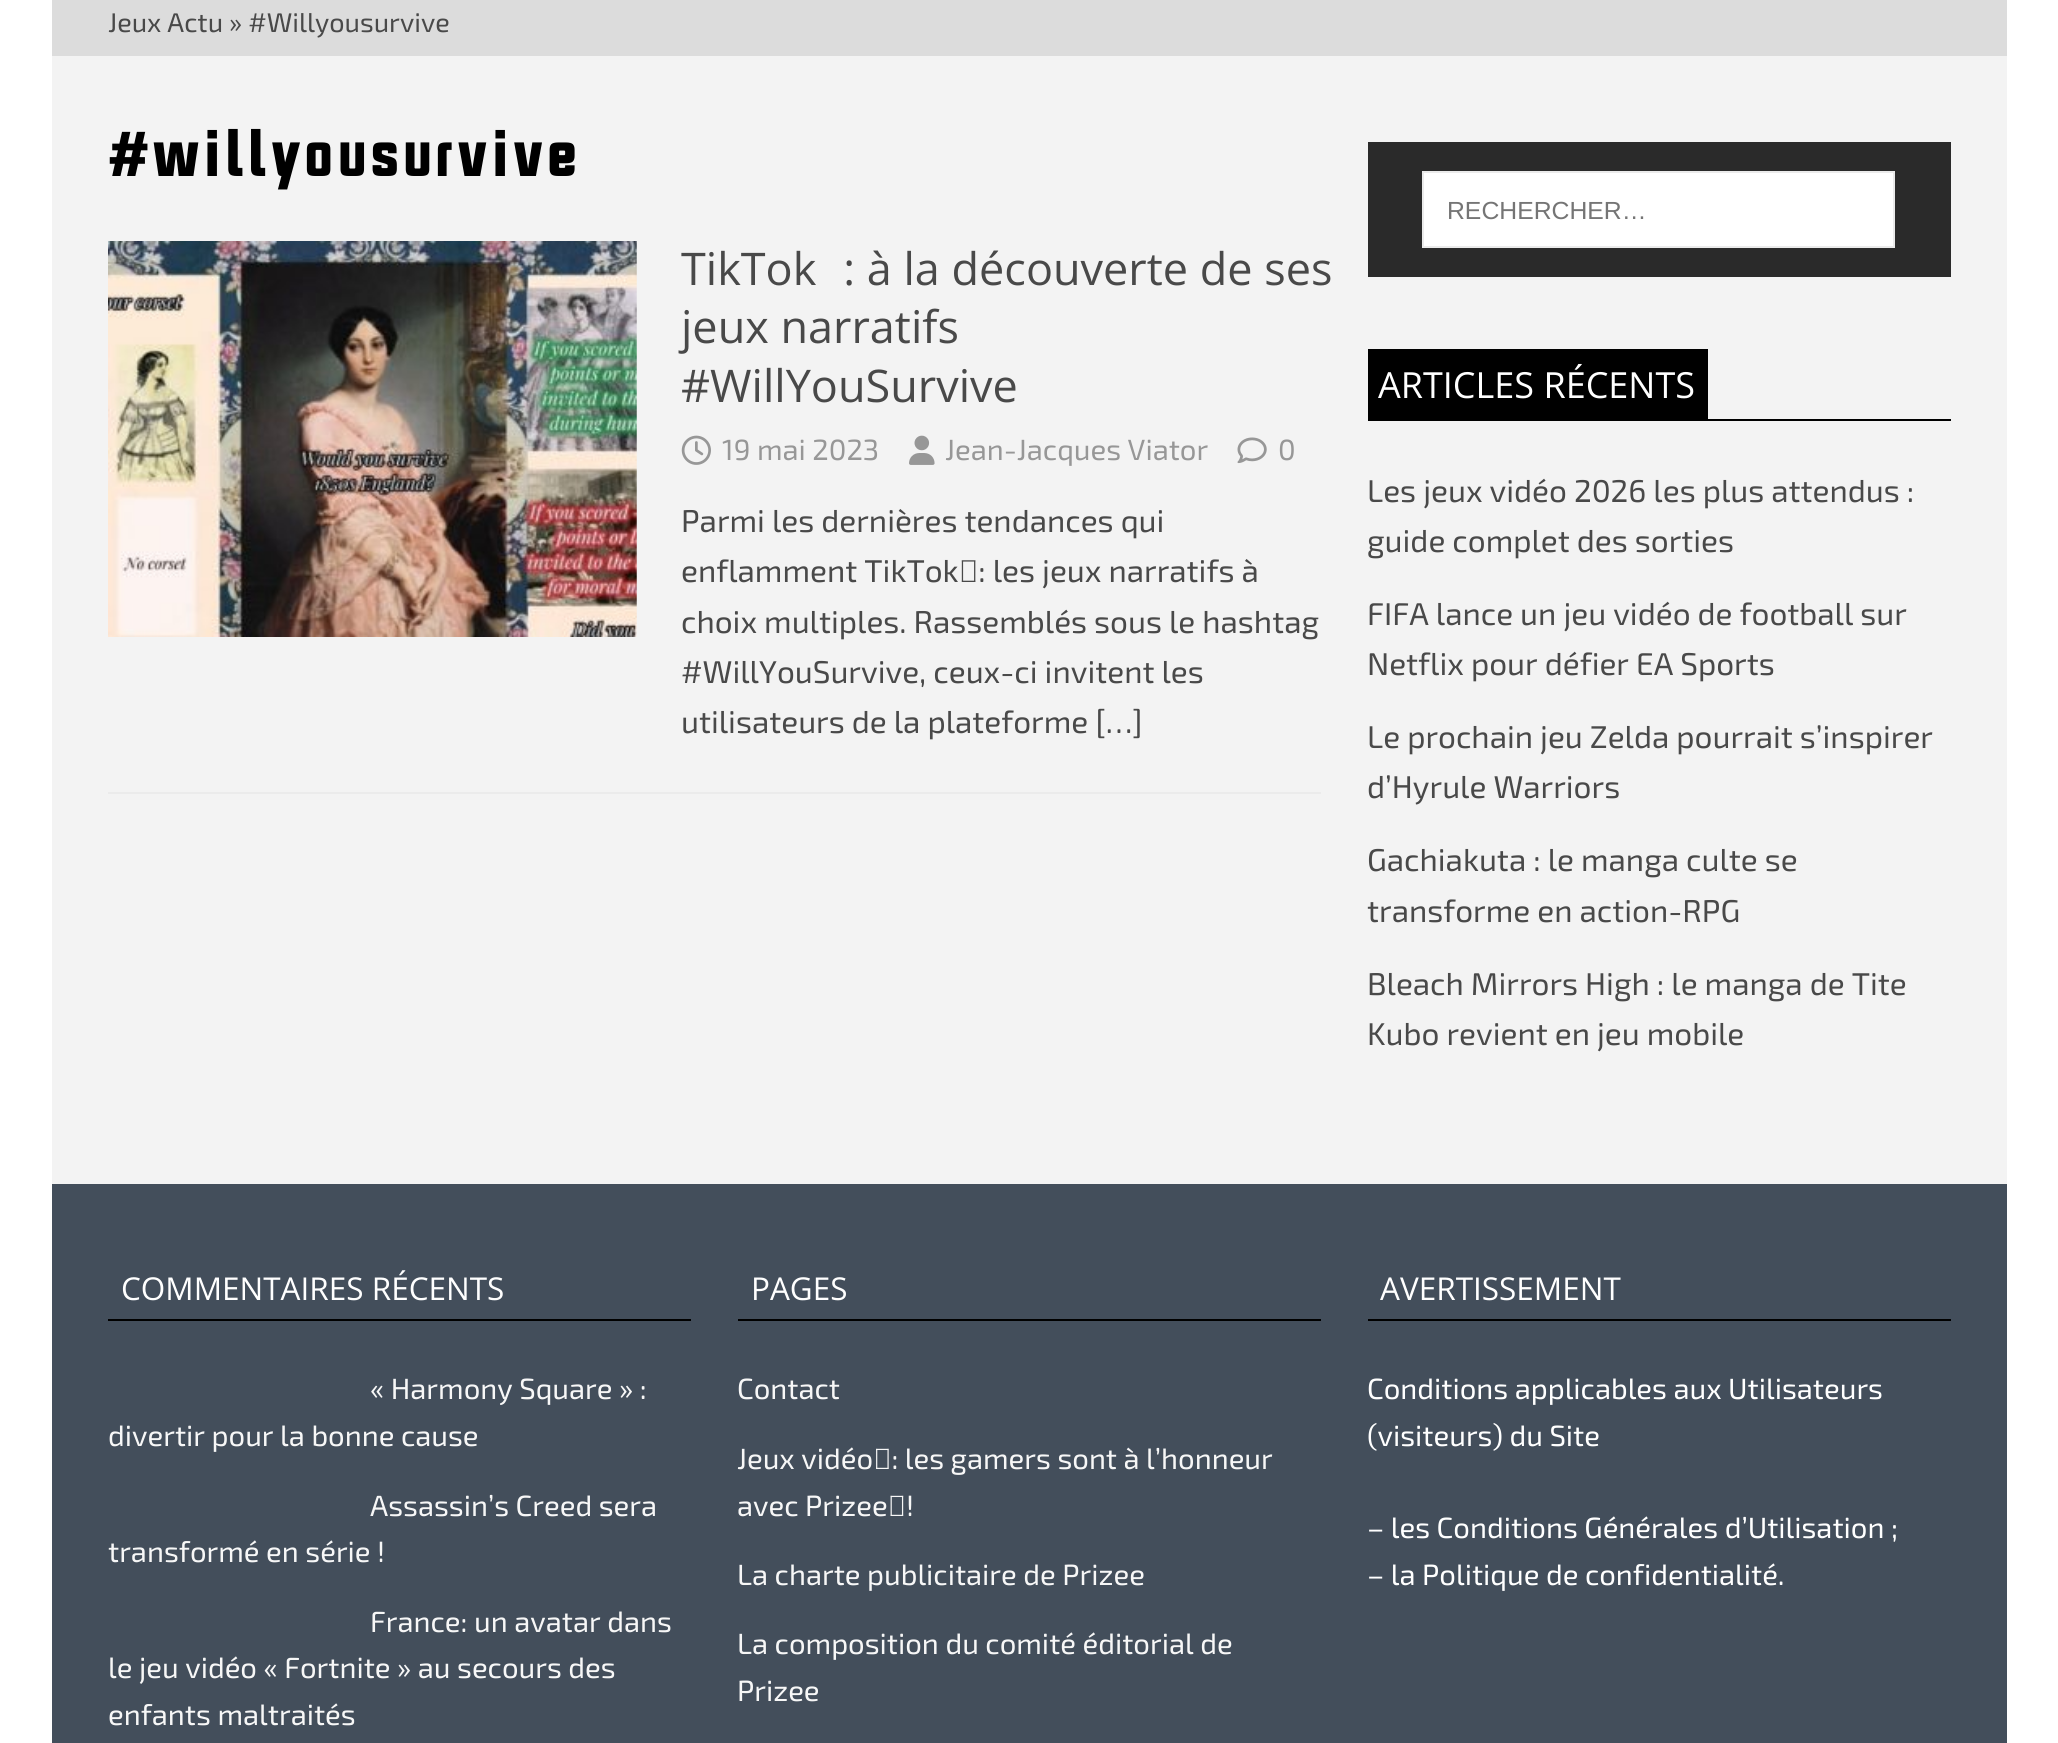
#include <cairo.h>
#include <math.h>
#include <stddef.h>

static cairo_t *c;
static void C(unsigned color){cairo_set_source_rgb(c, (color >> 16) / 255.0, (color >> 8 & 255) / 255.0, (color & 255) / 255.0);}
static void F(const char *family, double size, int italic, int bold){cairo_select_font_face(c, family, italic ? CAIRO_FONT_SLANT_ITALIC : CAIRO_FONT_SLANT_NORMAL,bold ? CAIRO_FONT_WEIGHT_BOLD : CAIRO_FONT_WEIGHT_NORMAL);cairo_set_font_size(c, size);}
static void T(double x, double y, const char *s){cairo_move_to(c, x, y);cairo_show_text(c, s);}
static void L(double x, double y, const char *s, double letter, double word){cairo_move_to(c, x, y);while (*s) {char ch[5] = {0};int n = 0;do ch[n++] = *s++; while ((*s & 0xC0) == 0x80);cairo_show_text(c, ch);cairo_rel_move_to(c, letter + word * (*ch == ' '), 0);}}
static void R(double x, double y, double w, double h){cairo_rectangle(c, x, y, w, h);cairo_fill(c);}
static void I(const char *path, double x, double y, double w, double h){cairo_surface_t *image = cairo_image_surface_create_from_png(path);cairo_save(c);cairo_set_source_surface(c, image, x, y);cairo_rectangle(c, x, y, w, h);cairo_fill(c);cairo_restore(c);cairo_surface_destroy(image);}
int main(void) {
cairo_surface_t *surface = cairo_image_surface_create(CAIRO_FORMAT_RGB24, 2058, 1743);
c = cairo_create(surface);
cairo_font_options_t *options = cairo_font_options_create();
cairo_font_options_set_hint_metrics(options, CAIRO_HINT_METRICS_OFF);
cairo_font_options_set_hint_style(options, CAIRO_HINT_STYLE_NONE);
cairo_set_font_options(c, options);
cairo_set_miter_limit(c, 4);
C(0xffffff);
cairo_paint(c);
C(0xdcdcdc);
R(52,0,1955,56);
F("Exo 2",27,0,0);
C(0x494949);
T(108,32,"Jeux Actu » #Willyousurvive");
C(0xf3f3f3);
R(52,56,1955,1128);
F("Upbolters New",63,0,0);
C(0x000000);
L(108,176,"#willyousurvive",4.5,0);
C(0xebebeb);
R(108,792,1213,2);
I("1.png",108,241,529,396);
F("Open Sans",45,0,0);
C(0x494949);
T(681,285,"TikTok : à la découverte de ses");
T(681,343,"jeux narratifs");
T(681,402,"#WillYouSurvive");
I("2.png",681,435,30,30);
F("Exo 2",29.25,0,0);
C(0x979797);
T(722,460,"19 mai 2023");
I("3.png",909,435,26,30);
T(945,460,"Jean-Jacques Viator");
I("4.png",1237,437,30,27);
T(1278,460,"0");
F("Exo 2",31.5,0,0);
C(0x494949);
T(681,532,"Parmi les dernières tendances qui");
T(681,582,"enflamment TikTok : les jeux narratifs à");
T(681,633,"choix multiples. Rassemblés sous le hashtag");
T(681,683,"#WillYouSurvive, ceux-ci invitent les");
T(681,733,"utilisateurs de la plateforme […]");
C(0x2a2a2a);
R(1368,142,583,135);
C(0xffffff);
cairo_rectangle(c,1423,172,471,75);
cairo_fill_preserve(c);
C(0xebebeb);
cairo_stroke(c);
F("Liberation Sans",24.75,0,0);
C(0x757575);
T(1447,219,"RECHERCHER…");
C(0x000000);
R(1708,419,243,2);
R(1368,349,340,72);
F("Open Sans",36,0,0);
C(0xffffff);
T(1378,398,"ARTICLES RÉCENTS");
F("Exo 2",31.5,0,0);
C(0x494949);
T(1367,502,"Les jeux vidéo 2026 les plus attendus :");
T(1367,552,"guide complet des sorties");
T(1367,625,"FIFA lance un jeu vidéo de football sur");
T(1367,675,"Netflix pour défier EA Sports");
T(1367,748,"Le prochain jeu Zelda pourrait s’inspirer");
T(1367,798,"d’Hyrule Warriors");
T(1367,871,"Gachiakuta : le manga culte se");
T(1367,922,"transforme en action-RPG");
T(1367,995,"Bleach Mirrors High : le manga de Tite");
T(1367,1045,"Kubo revient en jeu mobile");
C(0x434e5b);
R(52,1184,1955,559);
C(0x000000);
R(108,1319,583,2);
F("Open Sans",31.5,0,0);
C(0xffffff);
T(121,1300,"COMMENTAIRES RÉCENTS");
F("Exo 2",29.25,0,0);
C(0xf7f7f7);
T(370,1399,"« Harmony Square » :");
T(108,1446,"divertir pour la bonne cause");
T(370,1516,"Assassin’s Creed sera");
T(108,1562,"transformé en série !");
T(370,1632,"France: un avatar dans");
T(108,1678,"le jeu vidéo « Fortnite » au secours des");
T(108,1725,"enfants maltraités");
C(0x000000);
R(738,1319,583,2);
F("Open Sans",31.5,0,0);
C(0xffffff);
T(751,1300,"PAGES");
F("Exo 2",29.25,0,0);
C(0xf7f7f7);
T(737,1399,"Contact");
T(737,1469,"Jeux vidéo : les gamers sont à l’honneur");
T(737,1516,"avec Prizee !");
T(737,1585,"La charte publicitaire de Prizee");
T(737,1654,"La composition du comité éditorial de");
T(737,1701,"Prizee");
C(0x000000);
R(1368,1319,583,2);
F("Open Sans",31.5,0,0);
C(0xffffff);
T(1380,1300,"AVERTISSEMENT");
F("Exo 2",29.25,0,0);
T(1367,1399,"Conditions applicables aux Utilisateurs");
T(1367,1446,"(visiteurs) du Site");
T(1367,1538,"– les Conditions Générales d’Utilisation ;");
T(1367,1585,"– la Politique de confidentialité.");
cairo_surface_write_to_png(surface, "o.png");
cairo_font_options_destroy(options);
cairo_destroy(c);
cairo_surface_destroy(surface);
return 0;
}
